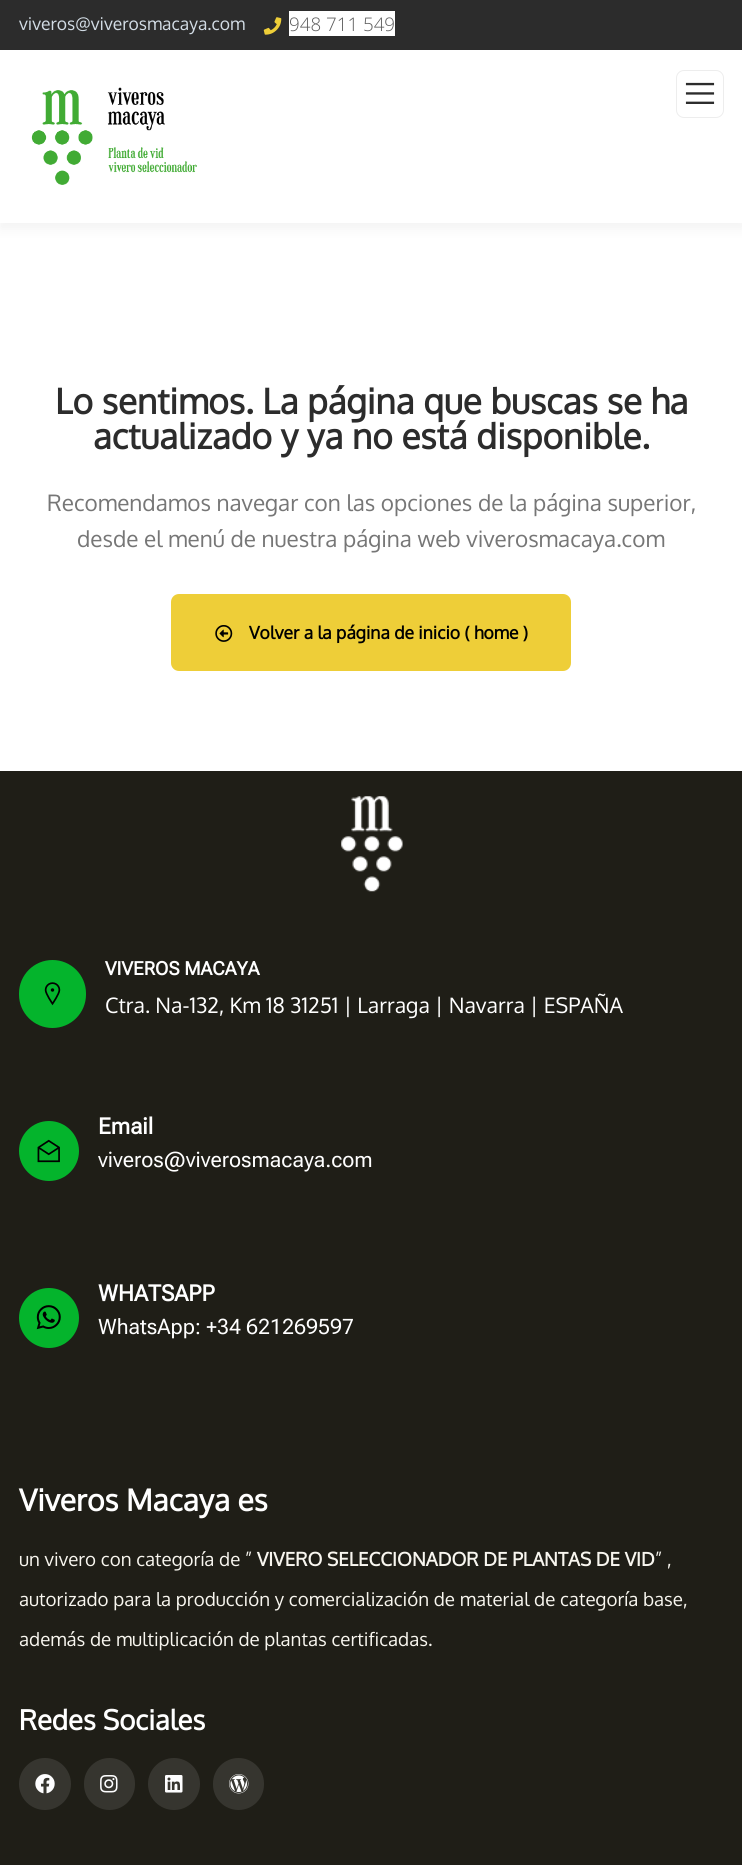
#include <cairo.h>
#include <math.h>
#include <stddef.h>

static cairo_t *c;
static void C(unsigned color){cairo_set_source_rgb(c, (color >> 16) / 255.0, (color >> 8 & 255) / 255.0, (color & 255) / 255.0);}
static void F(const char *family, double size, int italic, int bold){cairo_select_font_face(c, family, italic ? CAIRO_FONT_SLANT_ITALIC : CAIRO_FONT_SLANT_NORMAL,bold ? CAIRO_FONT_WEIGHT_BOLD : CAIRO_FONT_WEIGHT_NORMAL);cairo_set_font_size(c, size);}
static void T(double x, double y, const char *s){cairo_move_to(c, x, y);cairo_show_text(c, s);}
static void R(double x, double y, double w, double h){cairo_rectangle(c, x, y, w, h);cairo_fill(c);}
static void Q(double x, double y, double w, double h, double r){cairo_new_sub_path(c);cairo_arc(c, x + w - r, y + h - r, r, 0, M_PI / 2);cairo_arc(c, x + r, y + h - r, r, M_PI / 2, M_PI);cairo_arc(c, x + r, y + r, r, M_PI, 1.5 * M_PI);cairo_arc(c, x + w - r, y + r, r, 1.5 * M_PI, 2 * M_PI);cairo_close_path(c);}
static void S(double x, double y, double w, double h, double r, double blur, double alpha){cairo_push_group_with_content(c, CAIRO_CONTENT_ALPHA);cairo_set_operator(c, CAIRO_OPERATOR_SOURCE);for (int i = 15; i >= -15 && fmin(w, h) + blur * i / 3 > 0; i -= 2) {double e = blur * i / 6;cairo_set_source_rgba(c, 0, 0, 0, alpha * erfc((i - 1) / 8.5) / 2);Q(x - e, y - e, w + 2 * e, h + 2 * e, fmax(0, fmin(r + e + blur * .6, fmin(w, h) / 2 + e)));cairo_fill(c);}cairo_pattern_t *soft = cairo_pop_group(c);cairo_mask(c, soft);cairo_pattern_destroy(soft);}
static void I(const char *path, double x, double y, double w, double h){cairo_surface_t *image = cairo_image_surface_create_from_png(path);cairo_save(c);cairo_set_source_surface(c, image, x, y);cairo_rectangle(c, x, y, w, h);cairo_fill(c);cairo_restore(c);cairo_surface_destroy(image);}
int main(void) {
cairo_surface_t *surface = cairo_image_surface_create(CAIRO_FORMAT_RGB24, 742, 1865);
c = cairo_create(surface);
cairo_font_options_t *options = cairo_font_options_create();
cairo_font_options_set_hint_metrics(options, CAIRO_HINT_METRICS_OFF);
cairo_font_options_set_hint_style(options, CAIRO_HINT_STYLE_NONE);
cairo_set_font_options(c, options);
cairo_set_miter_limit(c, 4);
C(0xffffff);
cairo_paint(c);
C(0x000000);
S(0,6,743,223,0,6,.05);
C(0xffffff);
R(0,50,742,173);
C(0x2c2c2c);
R(0,0,742,50);
F("Oxygen",17.5,0,0);
C(0xd2dce5);
T(19,30,"viveros@viverosmacaya.com");
I("1.png",263,17,19,18);
C(0xffffff);
R(289,11,106,25);
F("Open Sans Light",18.75,0,0);
C(0x5b5b5b);
T(289,31,"948 711 549");
I("2.png",31,87,166,98);
Q(676.5,70.5,47,47,7.5);
C(0xededed);
cairo_set_line_width(c,1);
cairo_stroke(c);
I("3.png",685,82,30,22);
F("Oxygen",35,0,1);
C(0x2c2c2c);
T(55,414,"Lo sentimos. La página que buscas se ha");
T(93,449,"actualizado y ya no está disponible.");
F("Oxygen",22.5,0,0);
C(0x767676);
T(47,511,"Recomendamos navegar con las opciones de la página superior,");
T(77,547,"desde el menú de nuestra página web viverosmacaya.com");
C(0xeece38);
Q(171,594,400,77,8);
cairo_fill(c);
I("4.png",215,625,18,17);
F("Oxygen",17.5,0,1);
C(0x000000);
T(249,639,"Volver a la página de inicio ( home )");
C(0x1f1e17);
R(0,771,742,1094);
I("5.png",341,796,62,96);
C(0x04b42c);
Q(19,960,67,68,33.5);
cairo_fill(c);
I("6.png",44,982,17,24);
F("Roboto Flex",18.75,0,1);
C(0xffffff);
T(105,975,"VIVEROS MACAYA");
F("Oxygen",21.25,0,0);
T(105,1013,"Ctra. Na-132, Km 18 31251 | Larraga | Navarra | ESPAÑA");
C(0x04b42c);
cairo_new_path(c);
cairo_arc(c,49,1151,30,0,2 * M_PI);
cairo_fill(c);
I("7.png",37,1139,23,24);
F("Roboto Flex",22.5,0,1);
C(0xffffff);
T(98,1134,"Email");
F("Roboto Flex",21.25,0,0);
T(98,1167,"viveros@viverosmacaya.com");
C(0x04b42c);
cairo_new_path(c);
cairo_arc(c,49,1318,30,0,2 * M_PI);
cairo_fill(c);
I("8.png",36,1305,25,25);
F("Roboto Flex",22.5,0,1);
C(0xffffff);
T(98,1301,"WHATSAPP");
F("Roboto Flex",21.25,0,0);
T(98,1334,"WhatsApp: +34 621269597");
F("Oxygen",30,0,1);
T(19,1511,"Viveros Macaya es");
F("Oxygen",18.75,0,0);
C(0xf8f6ef);
T(19,1566,"un vivero con categoría de ”");
F("Oxygen",18.75,0,1);
T(257,1566,"VIVERO SELECCIONADOR DE PLANTAS DE VID");
F("Oxygen",18.75,0,0);
T(655,1566,"” ,");
T(19,1606,"autorizado para la producción y comercialización de material de categoría base,");
T(19,1646,"además de multiplicación de plantas certificadas.");
F("Oxygen",27.5,0,1);
C(0xffffff);
T(19,1730,"Redes Sociales");
C(0x36352f);
cairo_new_path(c);
cairo_arc(c,45,1784,26,0,2 * M_PI);
cairo_fill(c);
I("9.png",35,1774,20,20);
Q(84,1758,51,52,25.5);
cairo_fill(c);
I("10.png",100,1775,18,18);
cairo_arc(c,174,1784,26,0,2 * M_PI);
cairo_fill(c);
I("11.png",165,1775,18,18);
Q(213,1758,51,52,25.5);
cairo_fill(c);
I("12.png",229,1774,20,20);
cairo_surface_write_to_png(surface, "o.png");
cairo_font_options_destroy(options);
cairo_destroy(c);
cairo_surface_destroy(surface);
return 0;
}
